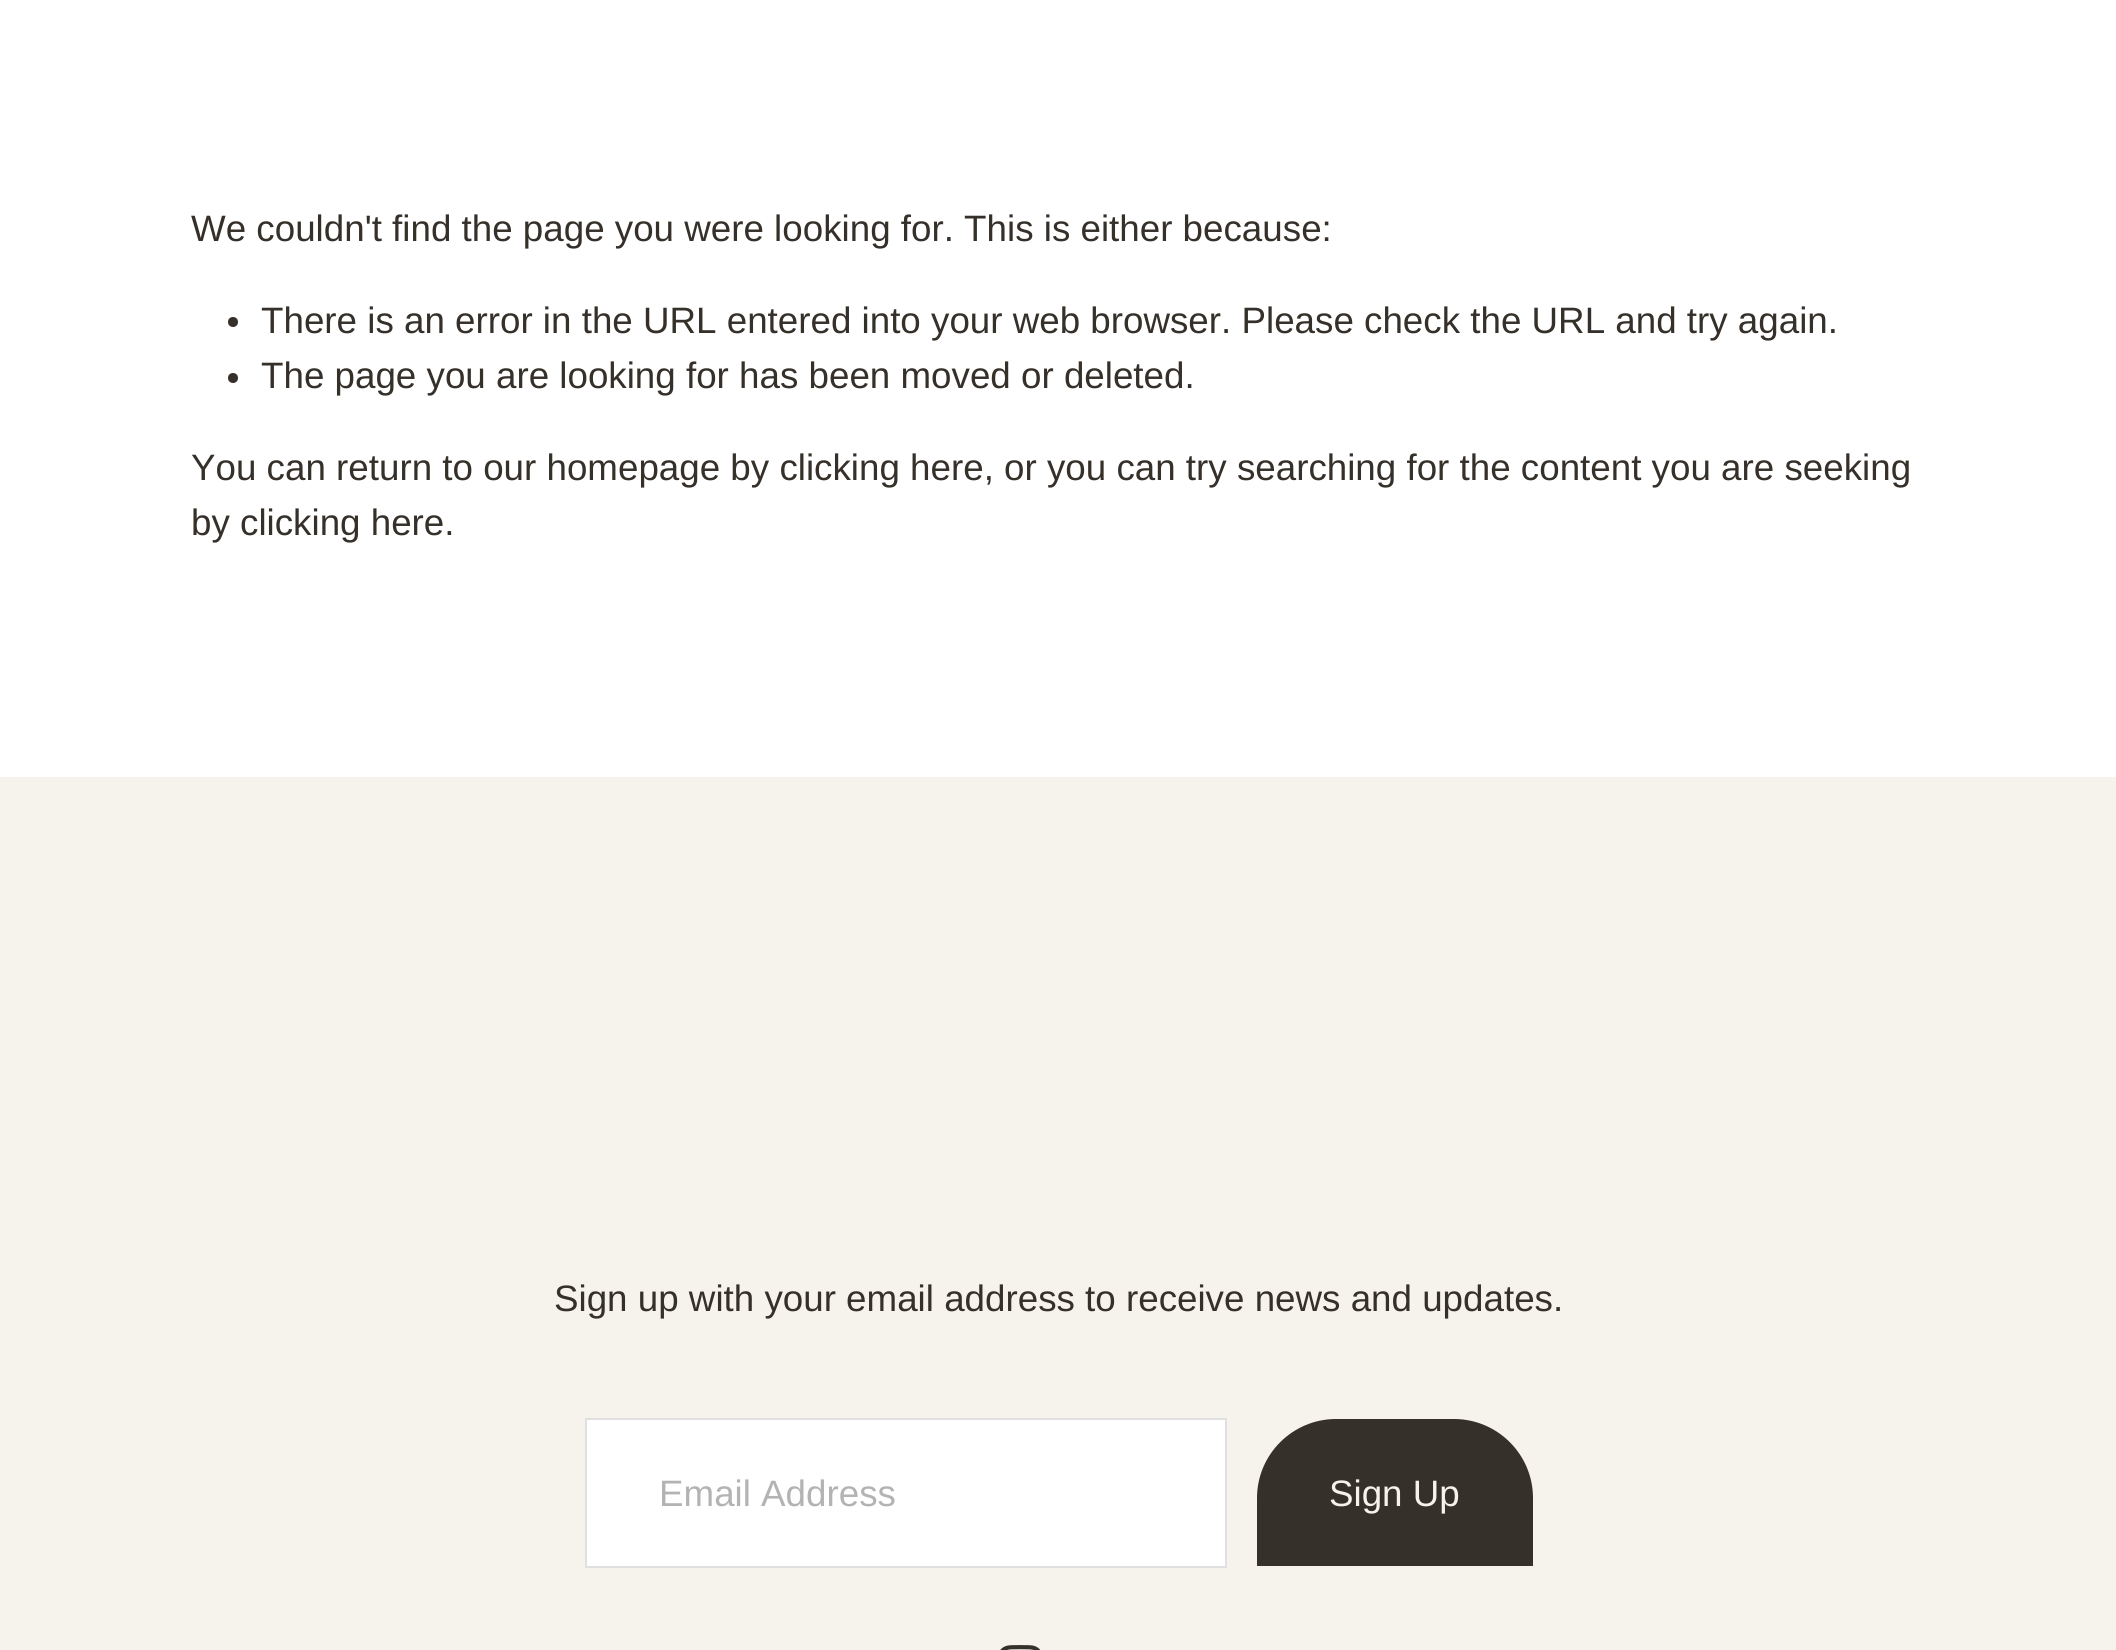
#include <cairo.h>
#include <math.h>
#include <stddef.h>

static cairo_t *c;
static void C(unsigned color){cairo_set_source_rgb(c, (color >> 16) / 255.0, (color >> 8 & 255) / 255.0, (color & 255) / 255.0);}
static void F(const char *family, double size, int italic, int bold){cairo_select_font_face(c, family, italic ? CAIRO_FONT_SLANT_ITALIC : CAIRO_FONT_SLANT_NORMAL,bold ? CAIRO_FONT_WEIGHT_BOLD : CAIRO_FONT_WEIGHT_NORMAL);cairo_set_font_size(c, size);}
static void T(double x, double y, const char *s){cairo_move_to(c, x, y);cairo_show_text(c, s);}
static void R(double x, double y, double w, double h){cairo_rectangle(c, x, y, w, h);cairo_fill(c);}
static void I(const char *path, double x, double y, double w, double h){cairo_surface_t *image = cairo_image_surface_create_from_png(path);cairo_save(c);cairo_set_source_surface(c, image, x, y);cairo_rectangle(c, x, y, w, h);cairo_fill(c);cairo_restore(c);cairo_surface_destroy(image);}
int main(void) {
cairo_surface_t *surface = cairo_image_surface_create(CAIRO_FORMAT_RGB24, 2116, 1650);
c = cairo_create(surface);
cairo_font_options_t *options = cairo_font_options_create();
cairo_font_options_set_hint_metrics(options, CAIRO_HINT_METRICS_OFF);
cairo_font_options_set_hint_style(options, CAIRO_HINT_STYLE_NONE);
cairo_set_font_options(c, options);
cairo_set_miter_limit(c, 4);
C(0xffffff);
cairo_paint(c);
F("Liberation Sans",36.75,0,0);
C(0x36302a);
T(191,241,"We couldn't find the page you were looking for. This is either because:");
cairo_new_path(c);
cairo_arc(c,233,322,5,0,2 * M_PI);
cairo_fill(c);
T(261,333,"There is an error in the URL entered into your web browser. Please check the URL and try again.");
cairo_new_path(c);
cairo_arc(c,233,378,5,0,2 * M_PI);
cairo_fill(c);
T(261,388,"The page you are looking for has been moved or deleted.");
T(191,480,"You can return to our homepage by clicking here, or you can try searching for the content you are seeking");
T(191,535,"by clicking here.");
C(0xf6f3ec);
R(0,777,2116,873);
C(0x36302a);
T(554,1311,"Sign up with your email address to receive news and updates.");
C(0xffffff);
cairo_rectangle(c,586,1419,640,148);
cairo_fill_preserve(c);
C(0xe0e0e0);
cairo_stroke(c);
C(0xb3b3b3);
T(659,1506,"Email Address");
C(0x36302a);
cairo_new_path(c);
cairo_move_to(c,1336,1419);
cairo_line_to(c,1454,1419);
cairo_curve_to(c,1497.5,1419,1533,1454.5,1533,1498);
cairo_line_to(c,1533,1566);
cairo_line_to(c,1257,1566);
cairo_line_to(c,1257,1498);
cairo_curve_to(c,1257,1454.5,1292.5,1419,1336,1419);
cairo_close_path(c);
cairo_fill(c);
C(0xf6f3ec);
T(1329,1506,"Sign Up");
I("1.png",1000,1645,41,5);
cairo_surface_write_to_png(surface, "o.png");
cairo_font_options_destroy(options);
cairo_destroy(c);
cairo_surface_destroy(surface);
return 0;
}
